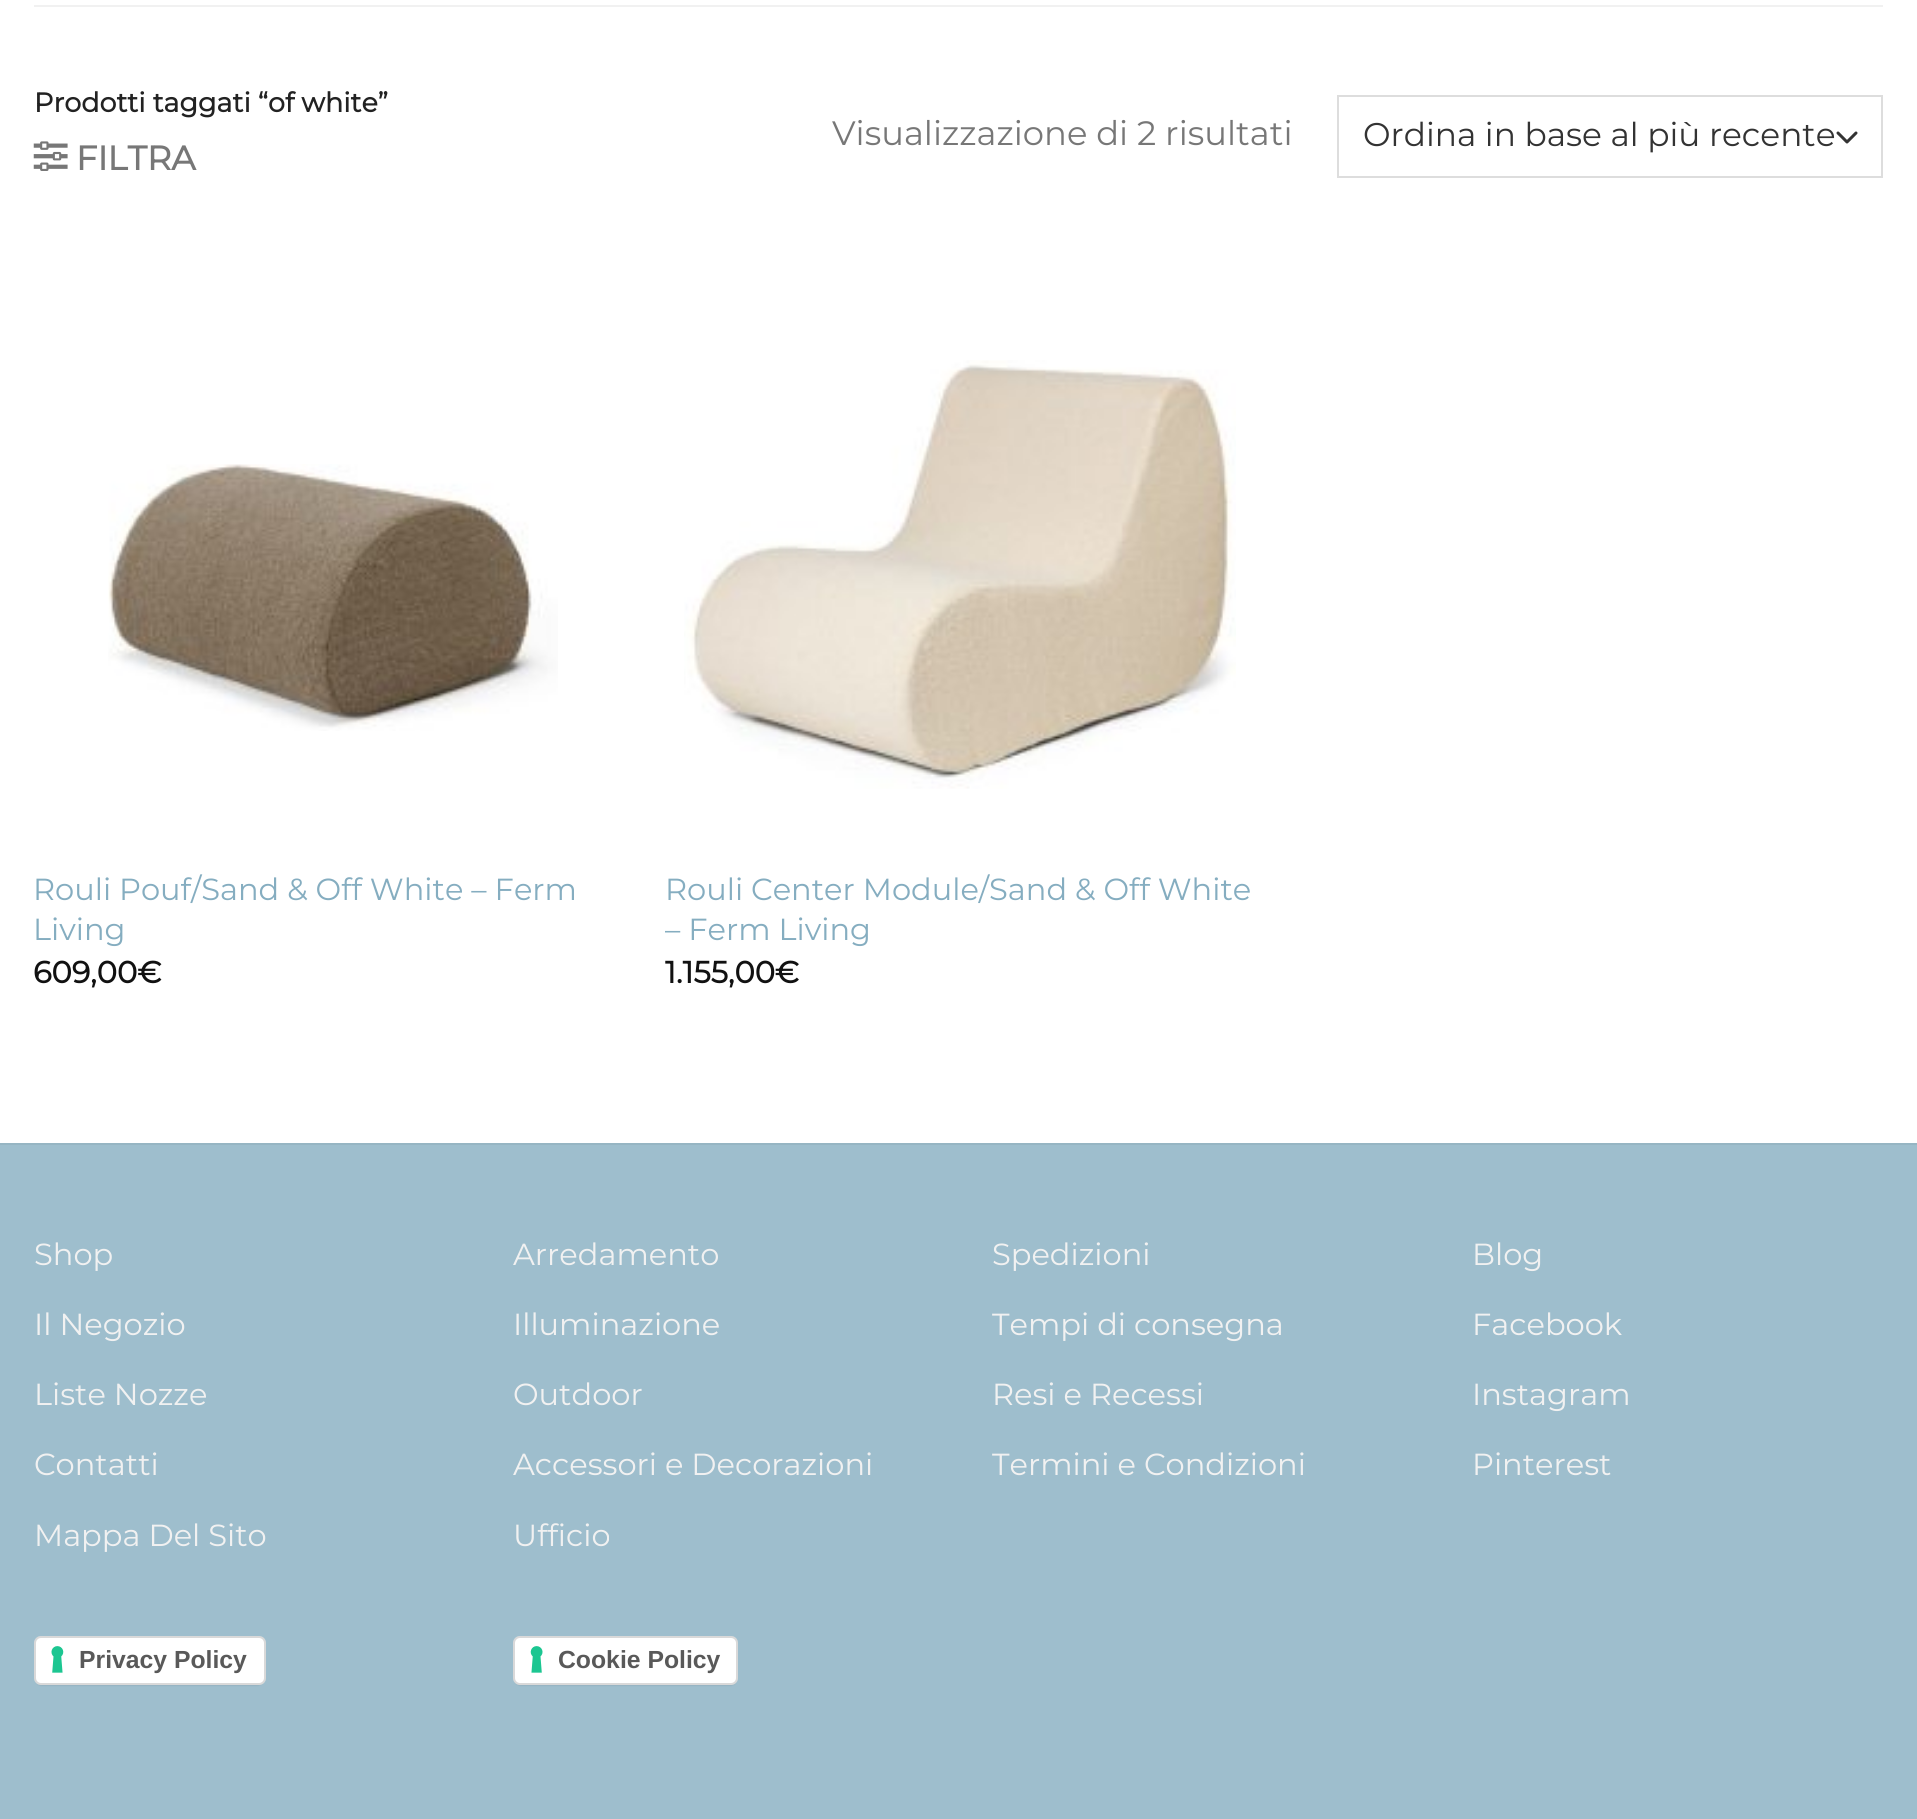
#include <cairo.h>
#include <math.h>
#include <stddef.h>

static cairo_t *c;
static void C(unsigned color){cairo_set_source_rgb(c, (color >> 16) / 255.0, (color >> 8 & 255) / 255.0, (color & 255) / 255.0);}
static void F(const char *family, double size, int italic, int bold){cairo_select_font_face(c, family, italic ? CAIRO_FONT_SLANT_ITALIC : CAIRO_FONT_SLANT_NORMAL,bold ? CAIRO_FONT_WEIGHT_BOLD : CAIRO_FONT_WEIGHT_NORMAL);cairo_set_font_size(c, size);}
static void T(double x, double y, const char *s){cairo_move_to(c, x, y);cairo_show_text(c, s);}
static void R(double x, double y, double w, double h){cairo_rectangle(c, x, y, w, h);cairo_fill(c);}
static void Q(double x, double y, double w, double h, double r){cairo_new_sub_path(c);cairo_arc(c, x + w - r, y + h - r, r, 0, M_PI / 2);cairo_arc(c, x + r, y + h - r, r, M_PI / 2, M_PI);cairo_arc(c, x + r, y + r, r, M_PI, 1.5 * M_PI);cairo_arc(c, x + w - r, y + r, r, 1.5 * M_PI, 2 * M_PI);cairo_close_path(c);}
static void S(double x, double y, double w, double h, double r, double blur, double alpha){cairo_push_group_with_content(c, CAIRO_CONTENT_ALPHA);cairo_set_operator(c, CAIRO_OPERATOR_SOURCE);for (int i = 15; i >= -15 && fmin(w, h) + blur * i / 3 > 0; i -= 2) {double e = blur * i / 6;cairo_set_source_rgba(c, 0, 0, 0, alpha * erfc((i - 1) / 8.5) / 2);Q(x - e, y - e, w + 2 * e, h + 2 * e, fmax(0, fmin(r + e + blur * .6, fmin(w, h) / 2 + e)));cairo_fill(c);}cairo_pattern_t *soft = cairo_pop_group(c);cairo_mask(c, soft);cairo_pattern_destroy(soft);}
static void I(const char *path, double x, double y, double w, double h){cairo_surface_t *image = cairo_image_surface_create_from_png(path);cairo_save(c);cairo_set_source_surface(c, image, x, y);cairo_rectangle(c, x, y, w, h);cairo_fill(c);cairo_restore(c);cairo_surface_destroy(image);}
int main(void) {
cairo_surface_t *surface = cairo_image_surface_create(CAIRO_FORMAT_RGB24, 1917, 1819);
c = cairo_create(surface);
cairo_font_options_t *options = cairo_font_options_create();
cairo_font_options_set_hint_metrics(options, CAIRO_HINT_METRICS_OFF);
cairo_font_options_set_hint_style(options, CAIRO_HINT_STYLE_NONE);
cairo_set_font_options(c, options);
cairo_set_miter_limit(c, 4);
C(0xffffff);
cairo_paint(c);
C(0xf1f1f1);
R(34,5,1849,2);
F("Montserrat",27,0,1);
C(0x222222);
T(34,112,"Prodotti taggati “of white”");
I("1.png",33,141,35,30);
F("Montserrat",33.8,0,1);
C(0x777777);
T(76,170,"FILTRA");
F("Montserrat Thin",33.8,0,0);
T(832,145,"Visualizzazione di 2 risultati");
cairo_new_path(c);
cairo_move_to(c,1838,133);
cairo_line_to(c,1847,142);
cairo_line_to(c,1856,133);
C(0x333333);
cairo_set_line_width(c,3);
cairo_set_line_cap(c,CAIRO_LINE_CAP_ROUND);
cairo_set_line_join(c,CAIRO_LINE_JOIN_ROUND);
cairo_stroke(c);
cairo_rectangle(c,1338,96,544,81);
C(0xdddddd);
cairo_set_line_width(c,2);
cairo_set_line_cap(c,CAIRO_LINE_CAP_BUTT);
cairo_set_line_join(c,CAIRO_LINE_JOIN_MITER);
cairo_stroke(c);
F("Montserrat Thin",32.8,0,0);
C(0x333333);
T(1363,146,"Ordina in base al più recente");
I("2.png",108,464,450,267);
F("Montserrat Thin",30.5,0,0);
C(0x85adc0);
T(33,900,"Rouli Pouf/Sand & Off White – Ferm");
T(33,940,"Living");
F("Montserrat",30.5,0,1);
C(0x111111);
T(33,983,"609,00€");
I("3.png",684,360,552,429);
F("Montserrat Thin",30.5,0,0);
C(0x85adc0);
T(665,900,"Rouli Center Module/Sand & Off White");
T(665,940,"– Ferm Living");
F("Montserrat",30.5,0,1);
C(0x111111);
T(665,983,"1.155,00€");
C(0x9ebecd);
R(0,1145,1917,674);
C(0x96b5c3);
R(0,1143,1917,2);
F("Montserrat Thin",30.5,0,0);
C(0xf1f1f1);
T(34,1265,"Shop");
T(34,1335,"Il Negozio");
T(34,1405,"Liste Nozze");
T(34,1475,"Contatti");
T(34,1546,"Mappa Del Sito");
T(513,1265,"Arredamento");
T(513,1335,"Illuminazione");
T(513,1405,"Outdoor");
T(513,1475,"Accessori e Decorazioni");
T(513,1546,"Ufficio");
T(992,1265,"Spedizioni");
T(992,1335,"Tempi di consegna");
T(992,1405,"Resi e Recessi");
T(992,1475,"Termini e Condizioni");
T(1472,1265,"Blog");
T(1472,1335,"Facebook");
T(1472,1405,"Instagram");
T(1472,1475,"Pinterest");
C(0x000000);
S(36,1640,227,45,5,1,.15);
C(0xffffff);
Q(34,1636,232,49,7);
cairo_fill(c);
I("4.png",51,1646,13,27);
Q(35,1637,230,47,6);
cairo_set_source_rgba(c,0,0,0,0.15);
cairo_stroke(c);
F("Liberation Sans",24.75,0,1);
C(0x595959);
T(79,1668,"Privacy Policy");
C(0x000000);
S(515,1640,221,45,5,1,.15);
C(0xffffff);
Q(513,1636,225,49,7);
cairo_fill(c);
I("5.png",530,1646,13,27);
Q(514,1637,223,47,6);
cairo_set_source_rgba(c,0,0,0,0.15);
cairo_stroke(c);
C(0x595959);
T(558,1668,"Cookie Policy");
cairo_surface_write_to_png(surface, "o.png");
cairo_font_options_destroy(options);
cairo_destroy(c);
cairo_surface_destroy(surface);
return 0;
}
